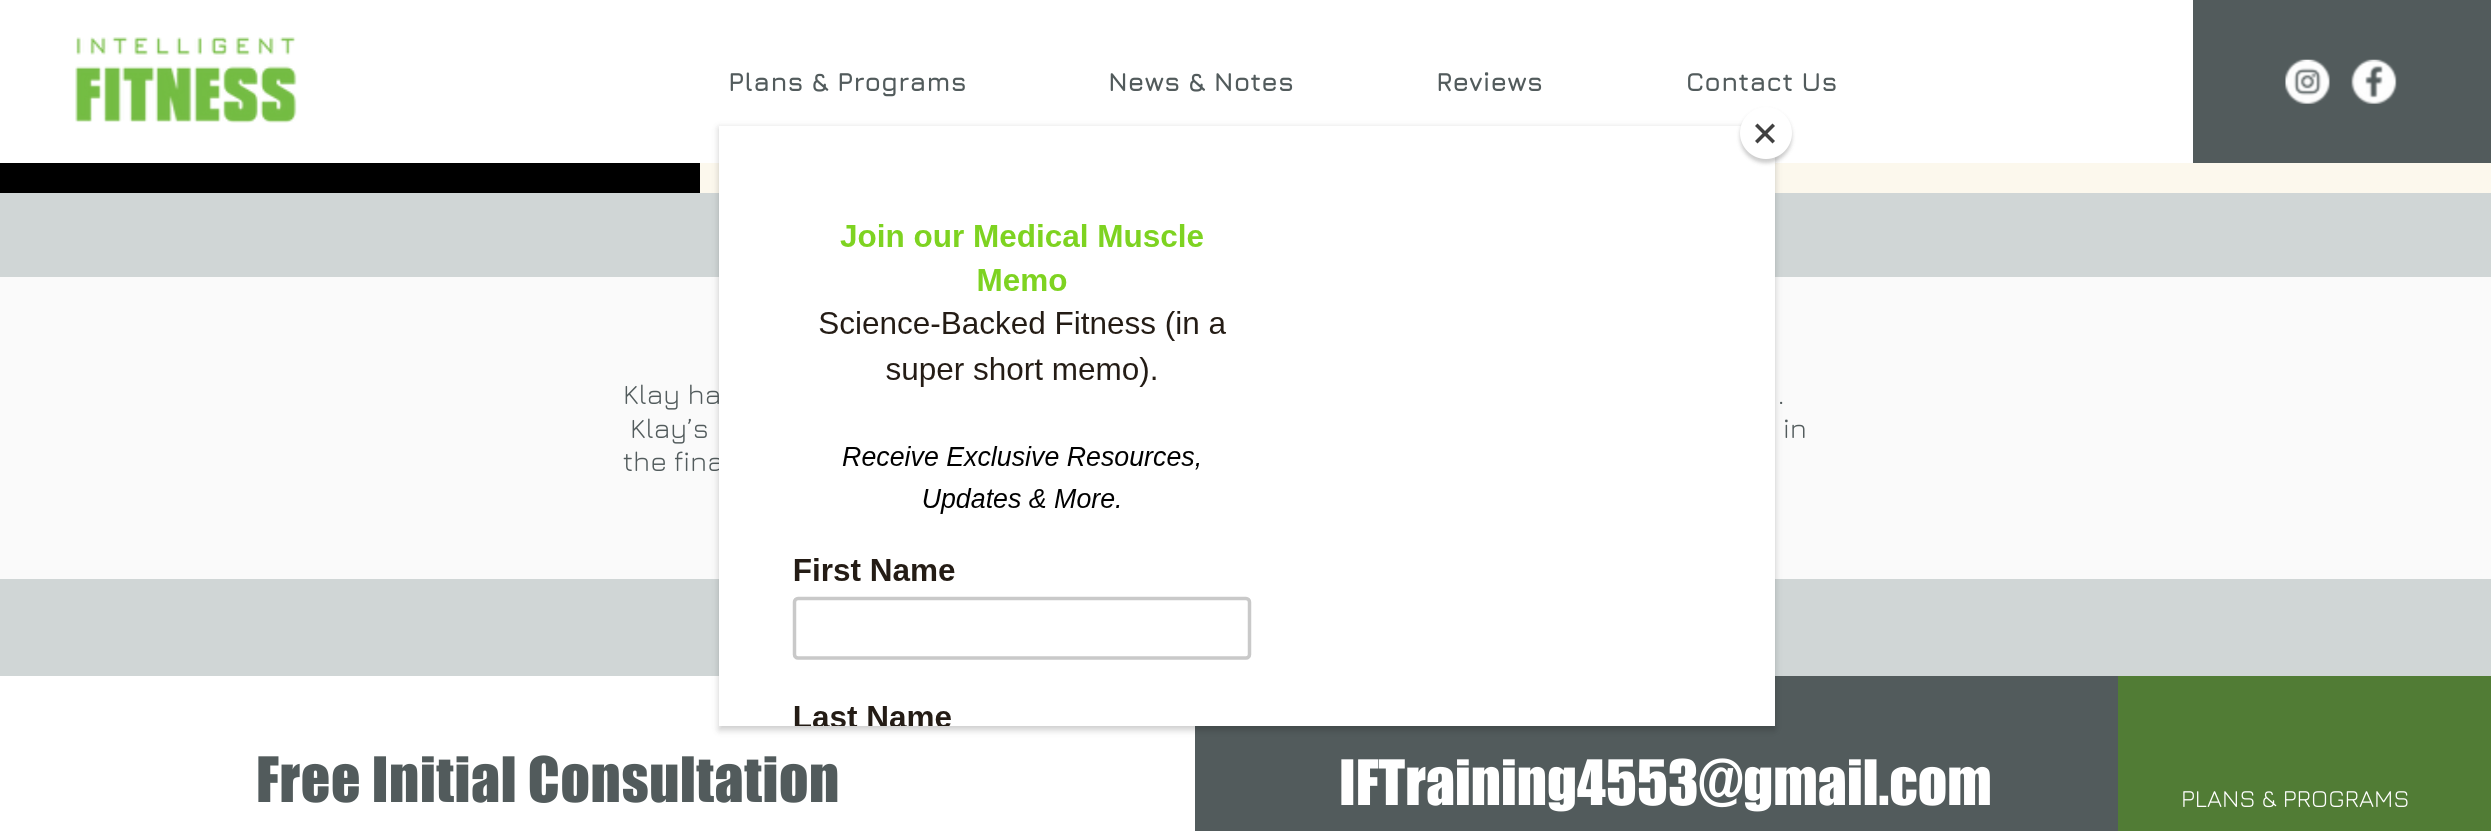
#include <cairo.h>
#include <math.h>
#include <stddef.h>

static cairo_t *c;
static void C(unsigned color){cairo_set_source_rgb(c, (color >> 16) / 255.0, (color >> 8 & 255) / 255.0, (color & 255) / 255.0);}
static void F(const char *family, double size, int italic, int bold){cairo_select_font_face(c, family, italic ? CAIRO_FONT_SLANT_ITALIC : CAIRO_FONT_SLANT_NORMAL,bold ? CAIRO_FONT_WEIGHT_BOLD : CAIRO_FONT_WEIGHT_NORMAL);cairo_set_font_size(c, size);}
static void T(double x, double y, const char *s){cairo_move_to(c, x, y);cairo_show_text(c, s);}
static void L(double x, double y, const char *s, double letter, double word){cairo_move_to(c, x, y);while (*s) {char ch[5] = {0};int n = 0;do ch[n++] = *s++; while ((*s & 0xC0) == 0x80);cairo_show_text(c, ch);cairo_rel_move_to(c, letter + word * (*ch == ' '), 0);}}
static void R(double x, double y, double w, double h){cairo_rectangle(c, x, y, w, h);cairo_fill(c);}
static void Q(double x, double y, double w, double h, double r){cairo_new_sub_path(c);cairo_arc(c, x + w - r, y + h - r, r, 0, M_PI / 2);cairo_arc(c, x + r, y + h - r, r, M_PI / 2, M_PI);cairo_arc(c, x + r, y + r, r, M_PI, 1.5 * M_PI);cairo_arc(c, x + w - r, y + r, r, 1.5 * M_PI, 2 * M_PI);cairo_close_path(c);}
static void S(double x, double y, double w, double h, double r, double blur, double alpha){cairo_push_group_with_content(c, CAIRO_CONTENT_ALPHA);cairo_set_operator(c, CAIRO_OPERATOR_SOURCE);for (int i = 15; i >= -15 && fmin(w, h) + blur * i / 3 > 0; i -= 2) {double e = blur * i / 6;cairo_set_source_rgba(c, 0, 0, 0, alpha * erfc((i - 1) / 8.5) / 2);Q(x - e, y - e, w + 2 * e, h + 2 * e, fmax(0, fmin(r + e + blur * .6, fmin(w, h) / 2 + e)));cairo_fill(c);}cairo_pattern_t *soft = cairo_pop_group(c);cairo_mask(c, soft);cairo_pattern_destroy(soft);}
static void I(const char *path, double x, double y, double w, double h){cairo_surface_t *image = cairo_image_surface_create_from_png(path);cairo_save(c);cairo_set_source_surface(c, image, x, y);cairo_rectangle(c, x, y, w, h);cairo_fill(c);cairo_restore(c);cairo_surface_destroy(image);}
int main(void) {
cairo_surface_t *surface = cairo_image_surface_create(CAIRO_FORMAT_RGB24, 2491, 831);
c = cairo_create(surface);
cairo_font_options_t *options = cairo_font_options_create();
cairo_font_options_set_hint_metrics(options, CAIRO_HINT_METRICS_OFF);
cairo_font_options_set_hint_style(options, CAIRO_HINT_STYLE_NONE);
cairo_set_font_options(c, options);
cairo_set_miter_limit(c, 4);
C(0xd0d6d6);
cairo_paint(c);
C(0xffffff);
R(0,0,2193,163);
I("1.png",75,37,222,86);
C(0x525b5c);
R(2193,0,298,163);
I("2.png",2285,59,45,45);
I("3.png",2351,59,46,45);
F("Jura",26.25,0,1);
T(728,91,"Plans & Programs");
T(1108,91,"News & Notes");
T(1436,91,"Reviews");
T(1686,91,"Contact Us");
C(0x000000);
R(0,163,700,30);
C(0xfcf8ed);
R(700,163,1791,30);
C(0xfafafa);
R(0,277,2491,302);
F("Jura",28,0,0);
C(0x525b5c);
T(623,404,"Klay ha");
T(1778,404,".");
T(630,438,"Klay’s");
T(1783,438,"in");
T(623,471,"the fina");
C(0xffffff);
R(0,676,1195,155);
F("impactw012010",57.75,0,0);
C(0x525b5c);
L(256,802,"Free Initial Consultation",.6,0);
R(1195,676,923,155);
C(0xffffff);
T(1339,805,"IFTraining4553@gmail.com");
C(0x517c35);
R(2118,676,373,155);
F("Jura",24.5,0,0);
C(0xffffff);
T(2181,807,"PLANS & PROGRAMS");
C(0x000000);
S(719,128,1056,602,0,3.5,.2);
I("4.png",719,126,1056,600);
S(1740,110,52,53,26,2,.2);
C(0xffffff);
cairo_arc(c,1766,133,26,0,2 * M_PI);
cairo_fill(c);
C(0x414141);
cairo_new_path(c);
cairo_move_to(c,1772.5,123.5);
cairo_line_to(c,1775,126);
cairo_line_to(c,1757.5,143.5);
cairo_line_to(c,1755,141);
cairo_close_path(c);
cairo_fill(c);
cairo_new_path(c);
cairo_move_to(c,1755,126);
cairo_line_to(c,1757.5,123.5);
cairo_line_to(c,1775,141);
cairo_line_to(c,1772.5,143.5);
cairo_close_path(c);
cairo_fill(c);
cairo_surface_write_to_png(surface, "o.png");
cairo_font_options_destroy(options);
cairo_destroy(c);
cairo_surface_destroy(surface);
return 0;
}
